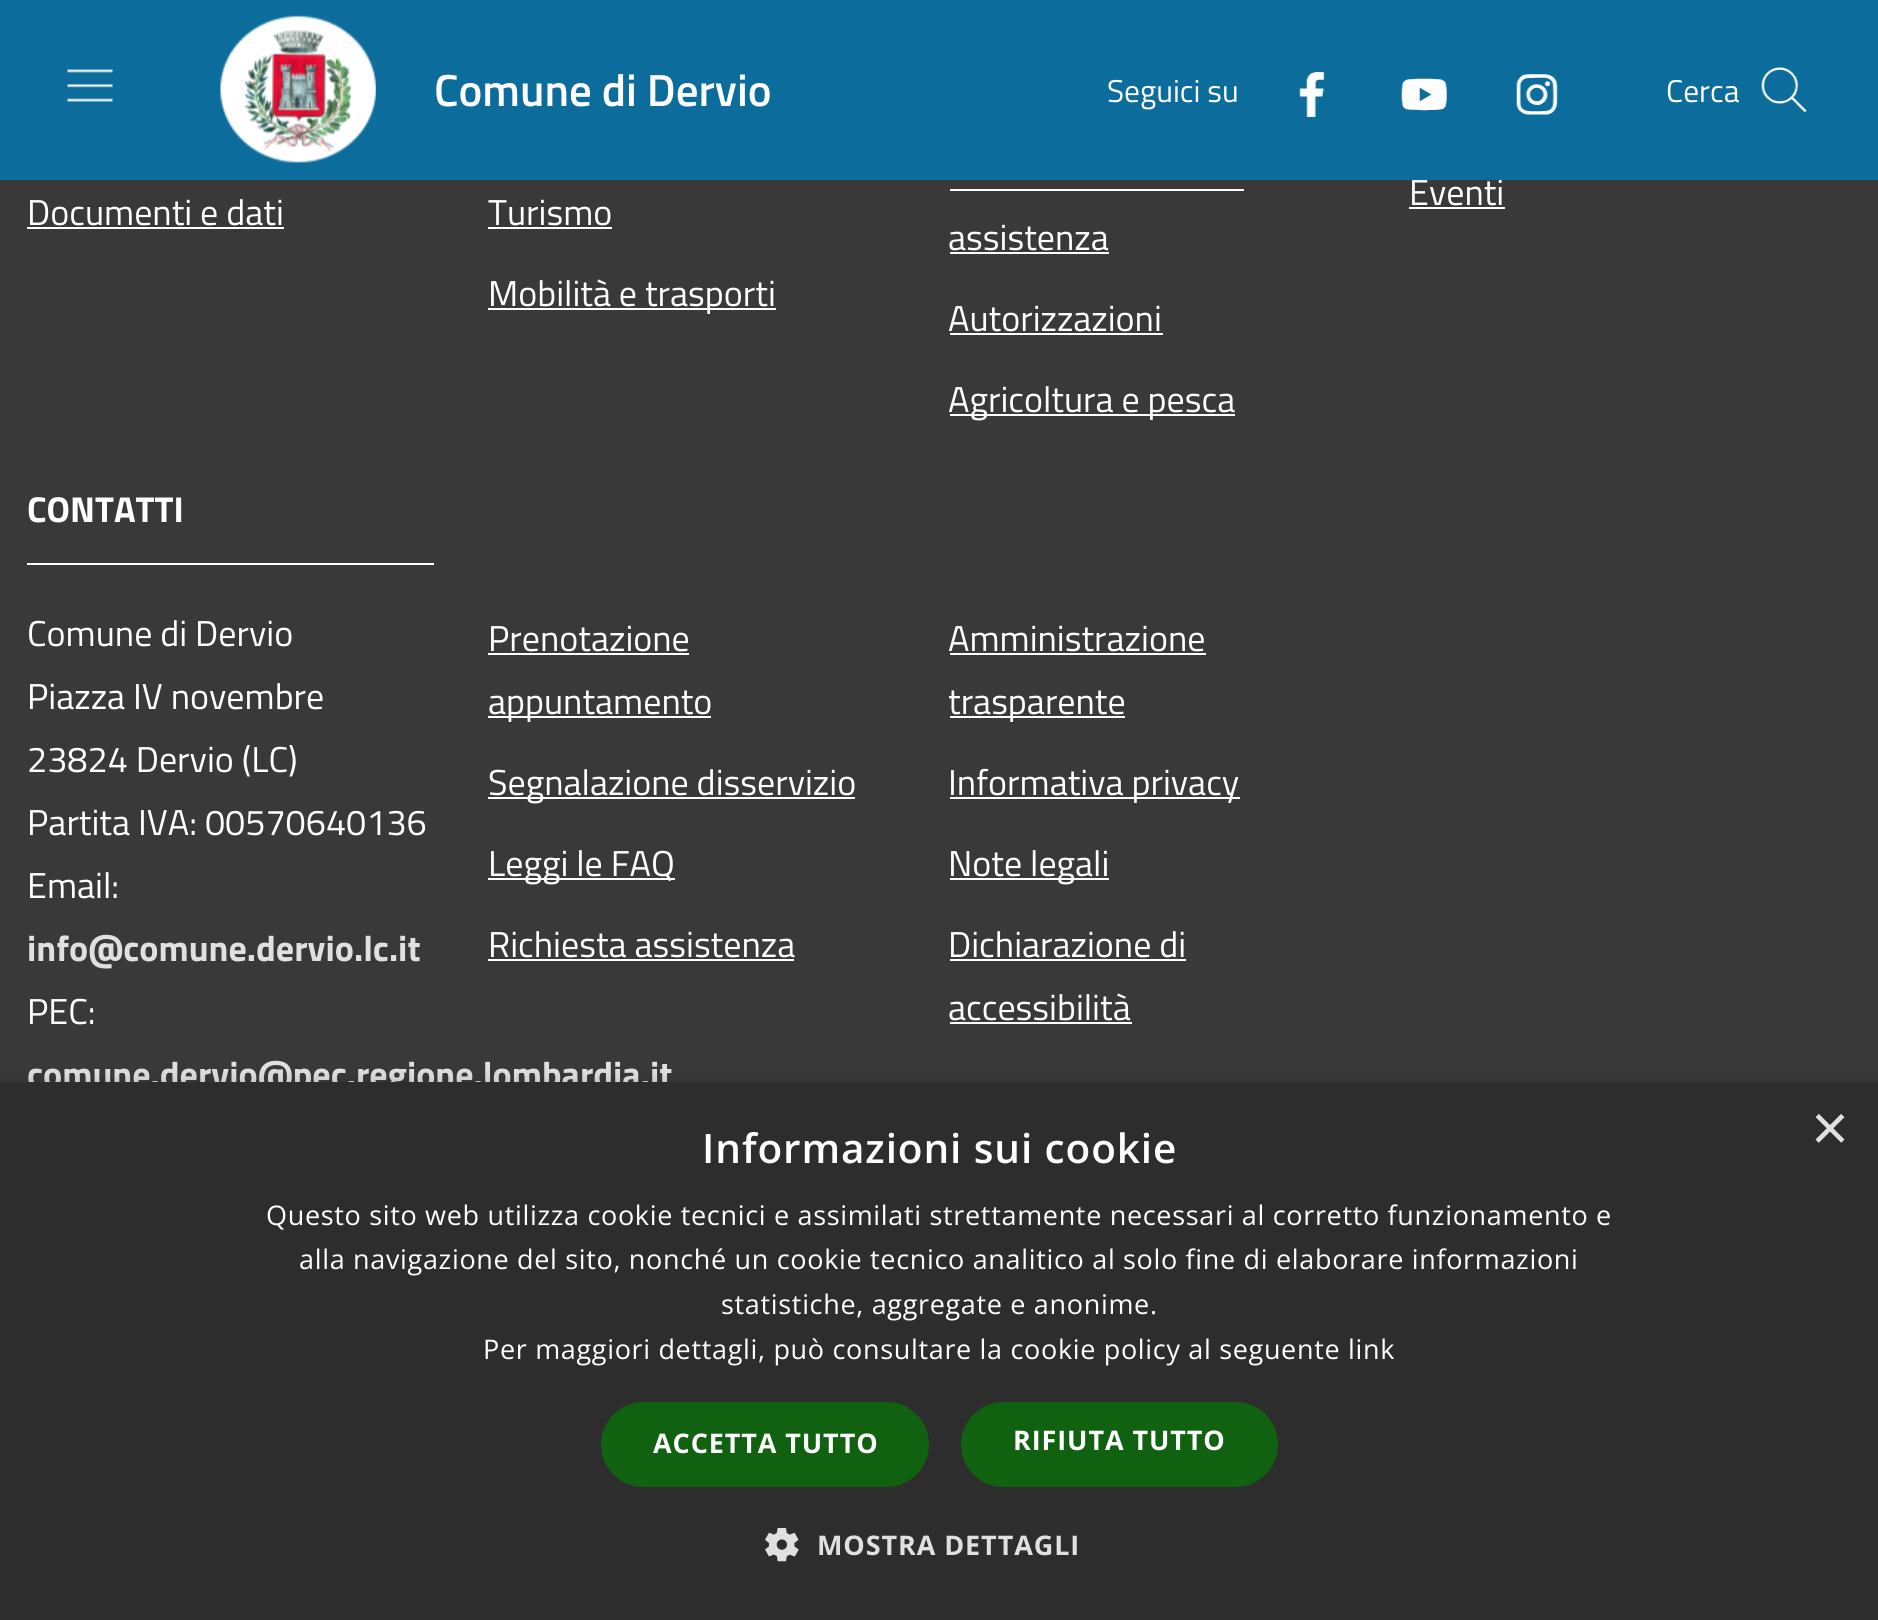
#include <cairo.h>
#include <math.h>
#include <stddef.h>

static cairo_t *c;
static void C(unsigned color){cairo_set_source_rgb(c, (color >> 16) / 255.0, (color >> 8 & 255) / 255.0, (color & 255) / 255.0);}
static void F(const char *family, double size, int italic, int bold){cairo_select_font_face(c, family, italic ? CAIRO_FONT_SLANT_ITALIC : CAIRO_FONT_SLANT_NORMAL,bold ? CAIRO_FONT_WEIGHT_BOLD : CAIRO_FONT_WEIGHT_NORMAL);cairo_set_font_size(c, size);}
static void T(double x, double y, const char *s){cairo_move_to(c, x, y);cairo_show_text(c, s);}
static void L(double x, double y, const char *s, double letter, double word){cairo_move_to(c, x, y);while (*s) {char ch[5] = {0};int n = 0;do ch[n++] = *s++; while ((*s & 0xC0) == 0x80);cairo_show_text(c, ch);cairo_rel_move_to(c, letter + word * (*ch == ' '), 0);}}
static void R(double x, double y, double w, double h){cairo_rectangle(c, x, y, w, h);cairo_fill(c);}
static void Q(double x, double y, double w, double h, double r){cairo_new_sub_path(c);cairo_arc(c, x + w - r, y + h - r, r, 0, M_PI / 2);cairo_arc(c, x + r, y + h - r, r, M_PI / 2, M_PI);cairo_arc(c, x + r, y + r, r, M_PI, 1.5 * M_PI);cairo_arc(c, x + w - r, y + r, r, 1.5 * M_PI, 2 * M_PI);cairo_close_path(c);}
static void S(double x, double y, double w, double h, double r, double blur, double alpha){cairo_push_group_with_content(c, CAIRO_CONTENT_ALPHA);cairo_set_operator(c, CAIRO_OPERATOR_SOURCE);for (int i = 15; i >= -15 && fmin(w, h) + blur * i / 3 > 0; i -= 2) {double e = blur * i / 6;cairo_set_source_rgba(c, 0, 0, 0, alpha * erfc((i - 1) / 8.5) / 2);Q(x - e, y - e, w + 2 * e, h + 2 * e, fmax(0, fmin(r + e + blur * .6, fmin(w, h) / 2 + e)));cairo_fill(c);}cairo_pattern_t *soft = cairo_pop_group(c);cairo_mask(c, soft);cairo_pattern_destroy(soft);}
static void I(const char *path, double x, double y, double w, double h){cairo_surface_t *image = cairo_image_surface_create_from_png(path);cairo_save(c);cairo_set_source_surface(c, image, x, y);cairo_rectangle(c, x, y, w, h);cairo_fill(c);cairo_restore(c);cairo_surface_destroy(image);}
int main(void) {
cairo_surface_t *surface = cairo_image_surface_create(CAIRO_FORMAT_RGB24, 1878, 1620);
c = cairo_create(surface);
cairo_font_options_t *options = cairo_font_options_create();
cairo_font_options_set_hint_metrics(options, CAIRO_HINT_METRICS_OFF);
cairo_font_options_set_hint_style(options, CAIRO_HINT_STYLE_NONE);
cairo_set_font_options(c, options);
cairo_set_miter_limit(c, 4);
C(0x393939);
cairo_paint(c);
F("Titillium Web",36,0,0);
C(0xffffff);
T(1409,205,"Eventi");
C(0x0c6c9c);
R(0,0,1878,180);
I("1.png",67,69,46,33);
I("2.png",220,15,156,148);
F("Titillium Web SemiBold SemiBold",45,0,0);
C(0xffffff);
T(434,106,"Comune di Dervio");
F("Titillium Web",31.5,0,0);
T(1107,102,"Seguici su");
I("3.png",1299,72,26,45);
I("4.png",1401,78,46,33);
I("5.png",1516,74,42,41);
T(1666,102,"Cerca");
I("6.png",1761,67,46,46);
R(1409,207,96,2);
F("Titillium Web",36,0,0);
T(27,225,"Documenti e dati");
R(27,227,257,2);
T(488,225,"Turismo");
R(488,227,124,2);
R(488,308,288,2);
T(488,306,"Mobilità e trasporti");
T(948,250,"assistenza");
R(950,189,294,2);
R(950,252,159,2);
T(948,331,"Autorizzazioni");
R(950,333,213,2);
R(950,414,285,2);
T(948,412,"Agricoltura e pesca");
R(27,563,407,2);
F("Titillium Web",36,0,1);
T(27,522,"CONTATTI");
F("Titillium Web",36,0,0);
T(27,646,"Comune di Dervio");
T(27,709,"Piazza IV novembre");
T(27,772,"23824 Dervio (LC)");
T(27,835,"Partita IVA: 00570640136");
T(27,898,"Email:");
F("Titillium Web",36,0,1);
C(0xe0e0e0);
T(27,961,"info@comune.dervio.lc.it");
F("Titillium Web",36,0,0);
C(0xffffff);
T(27,1024,"PEC:");
F("Titillium Web",36,0,1);
C(0xe0e0e0);
T(27,1087,"comune.dervio@pec.regione.lombardia.it");
F("Titillium Web",36,0,0);
C(0xffffff);
T(488,651,"Prenotazione");
R(488,653,201,2);
R(488,716,223,2);
T(488,714,"appuntamento");
R(488,797,367,2);
T(488,795,"Segnalazione disservizio");
R(488,878,187,2);
T(488,876,"Leggi le FAQ");
T(488,957,"Richiesta assistenza");
R(488,959,306,2);
T(948,651,"Amministrazione");
R(950,653,256,2);
R(950,716,175,2);
T(948,714,"trasparente");
R(950,797,290,2);
T(948,795,"Informativa privacy");
R(950,878,159,2);
T(948,876,"Note legali");
T(948,957,"Dichiarazione di");
R(950,959,236,2);
T(948,1020,"accessibilità");
R(950,1022,182,2);
C(0x000000);
S(2,1087,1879,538,0,9,.35);
C(0x2d2d2d);
R(0,1082,1878,538);
F("Liberation Sans",65,0,0);
C(0xe0e0e0);
T(1811,1150,"×");
F("Open Sans SemiBold",40.5,0,0);
C(0xffffff);
L(702,1163,"Informazioni sui cookie",.9,0);
F("Open Sans",27,0,0);
L(266,1225,"Questo sito web utilizza cookie tecnici e assimilati strettamente necessari al corretto funzionamento e",.67,0);
L(299,1269,"alla navigazione del sito, nonché un cookie tecnico analitico al solo fine di elaborare informazioni",.67,0);
L(721,1314,"statistiche, aggregate e anonime.",.67,0);
L(483,1359,"Per maggiori dettagli, può consultare la cookie policy al seguente link",.67,0);
C(0x106110);
Q(601,1402,328,85,42.5);
cairo_fill(c);
F("Open Sans",27,0,1);
C(0xffffff);
L(653,1453,"ACCETTA TUTTO",.9,0);
C(0x106110);
Q(961,1402,317,85,42.5);
cairo_fill(c);
C(0xffffff);
L(1013,1450,"RIFIUTA TUTTO",.9,0);
I("7.png",765,1528,34,34);
C(0xe0e0e0);
L(817,1555,"MOSTRA DETTAGLI",.9,0);
cairo_surface_write_to_png(surface, "o.png");
cairo_font_options_destroy(options);
cairo_destroy(c);
cairo_surface_destroy(surface);
return 0;
}
